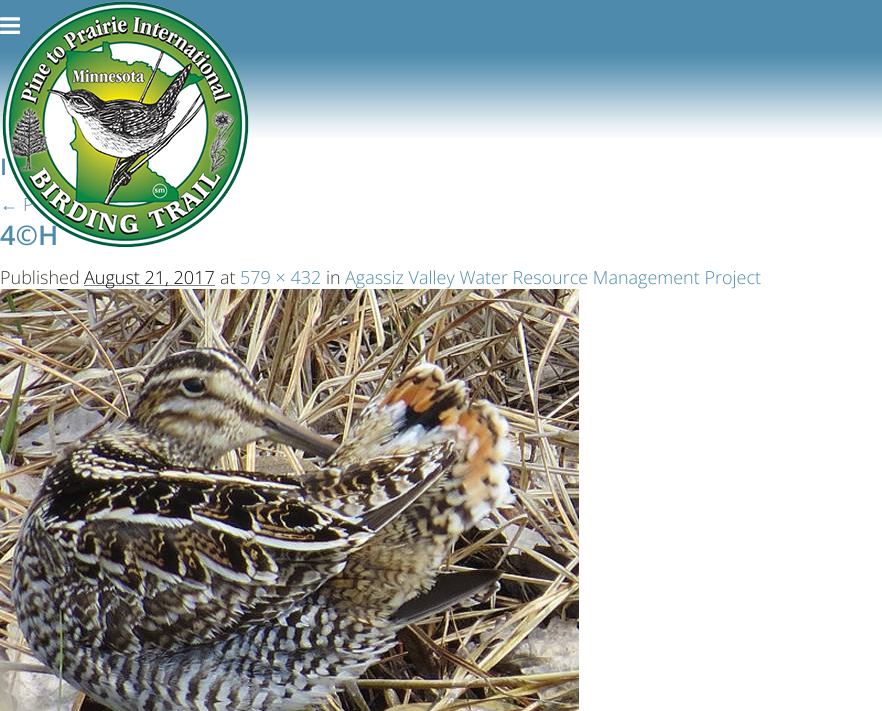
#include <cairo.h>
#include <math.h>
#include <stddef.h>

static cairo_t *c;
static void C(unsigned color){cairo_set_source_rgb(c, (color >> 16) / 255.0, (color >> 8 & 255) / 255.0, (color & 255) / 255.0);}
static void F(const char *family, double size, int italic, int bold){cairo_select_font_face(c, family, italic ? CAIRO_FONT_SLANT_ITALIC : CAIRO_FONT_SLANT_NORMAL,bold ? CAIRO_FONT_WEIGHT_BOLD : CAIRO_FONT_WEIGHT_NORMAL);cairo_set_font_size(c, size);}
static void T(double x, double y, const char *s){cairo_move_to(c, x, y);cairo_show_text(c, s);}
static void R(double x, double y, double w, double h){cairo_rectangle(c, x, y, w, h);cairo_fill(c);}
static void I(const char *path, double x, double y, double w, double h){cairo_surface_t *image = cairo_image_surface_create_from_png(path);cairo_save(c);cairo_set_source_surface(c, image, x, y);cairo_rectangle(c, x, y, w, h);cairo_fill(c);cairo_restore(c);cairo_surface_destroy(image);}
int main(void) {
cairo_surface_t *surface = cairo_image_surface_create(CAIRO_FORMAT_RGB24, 882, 711);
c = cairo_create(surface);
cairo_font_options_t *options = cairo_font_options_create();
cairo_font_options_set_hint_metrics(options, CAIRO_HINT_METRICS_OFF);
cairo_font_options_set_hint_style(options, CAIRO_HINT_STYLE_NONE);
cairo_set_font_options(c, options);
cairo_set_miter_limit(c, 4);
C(0xffffff);
cairo_paint(c);
C(0x4e8aac);
R(0,0,882,50);
I("2.png",0,17,21,17);
I("3.png",0,50,882,88);
F("Open Sans SemiBold",23,0,0);
T(0,175,"I");
F("Liberation Sans",18,0,0);
T(0,211,"←");
F("Open Sans Light",18,0,0);
T(23,211,"P");
F("Open Sans SemiBold",27,0,0);
T(0,245,"4©H");
I("1.png",2,1,247,247);
F("Open Sans Light",18,0,0);
C(0x3e3e36);
T(0,284,"Published");
cairo_new_path(c);
cairo_move_to(c,84.5,285.5);
cairo_line_to(c,215,285.5);
C(0x0a0a0a);
cairo_set_line_width(c,1);
cairo_set_dash(c,(double[]){1,1},2,0);
cairo_stroke(c);
T(84,284,"August 21, 2017");
C(0x3e3e36);
T(220,284,"at");
C(0x4e8aac);
T(240,284,"579 × 432");
C(0x3e3e36);
T(326,284,"in");
C(0x4e8aac);
T(345,284,"Agassiz Valley Water Resource Management Project");
I("4.png",0,289,579,422);
cairo_surface_write_to_png(surface, "o.png");
cairo_font_options_destroy(options);
cairo_destroy(c);
cairo_surface_destroy(surface);
return 0;
}
